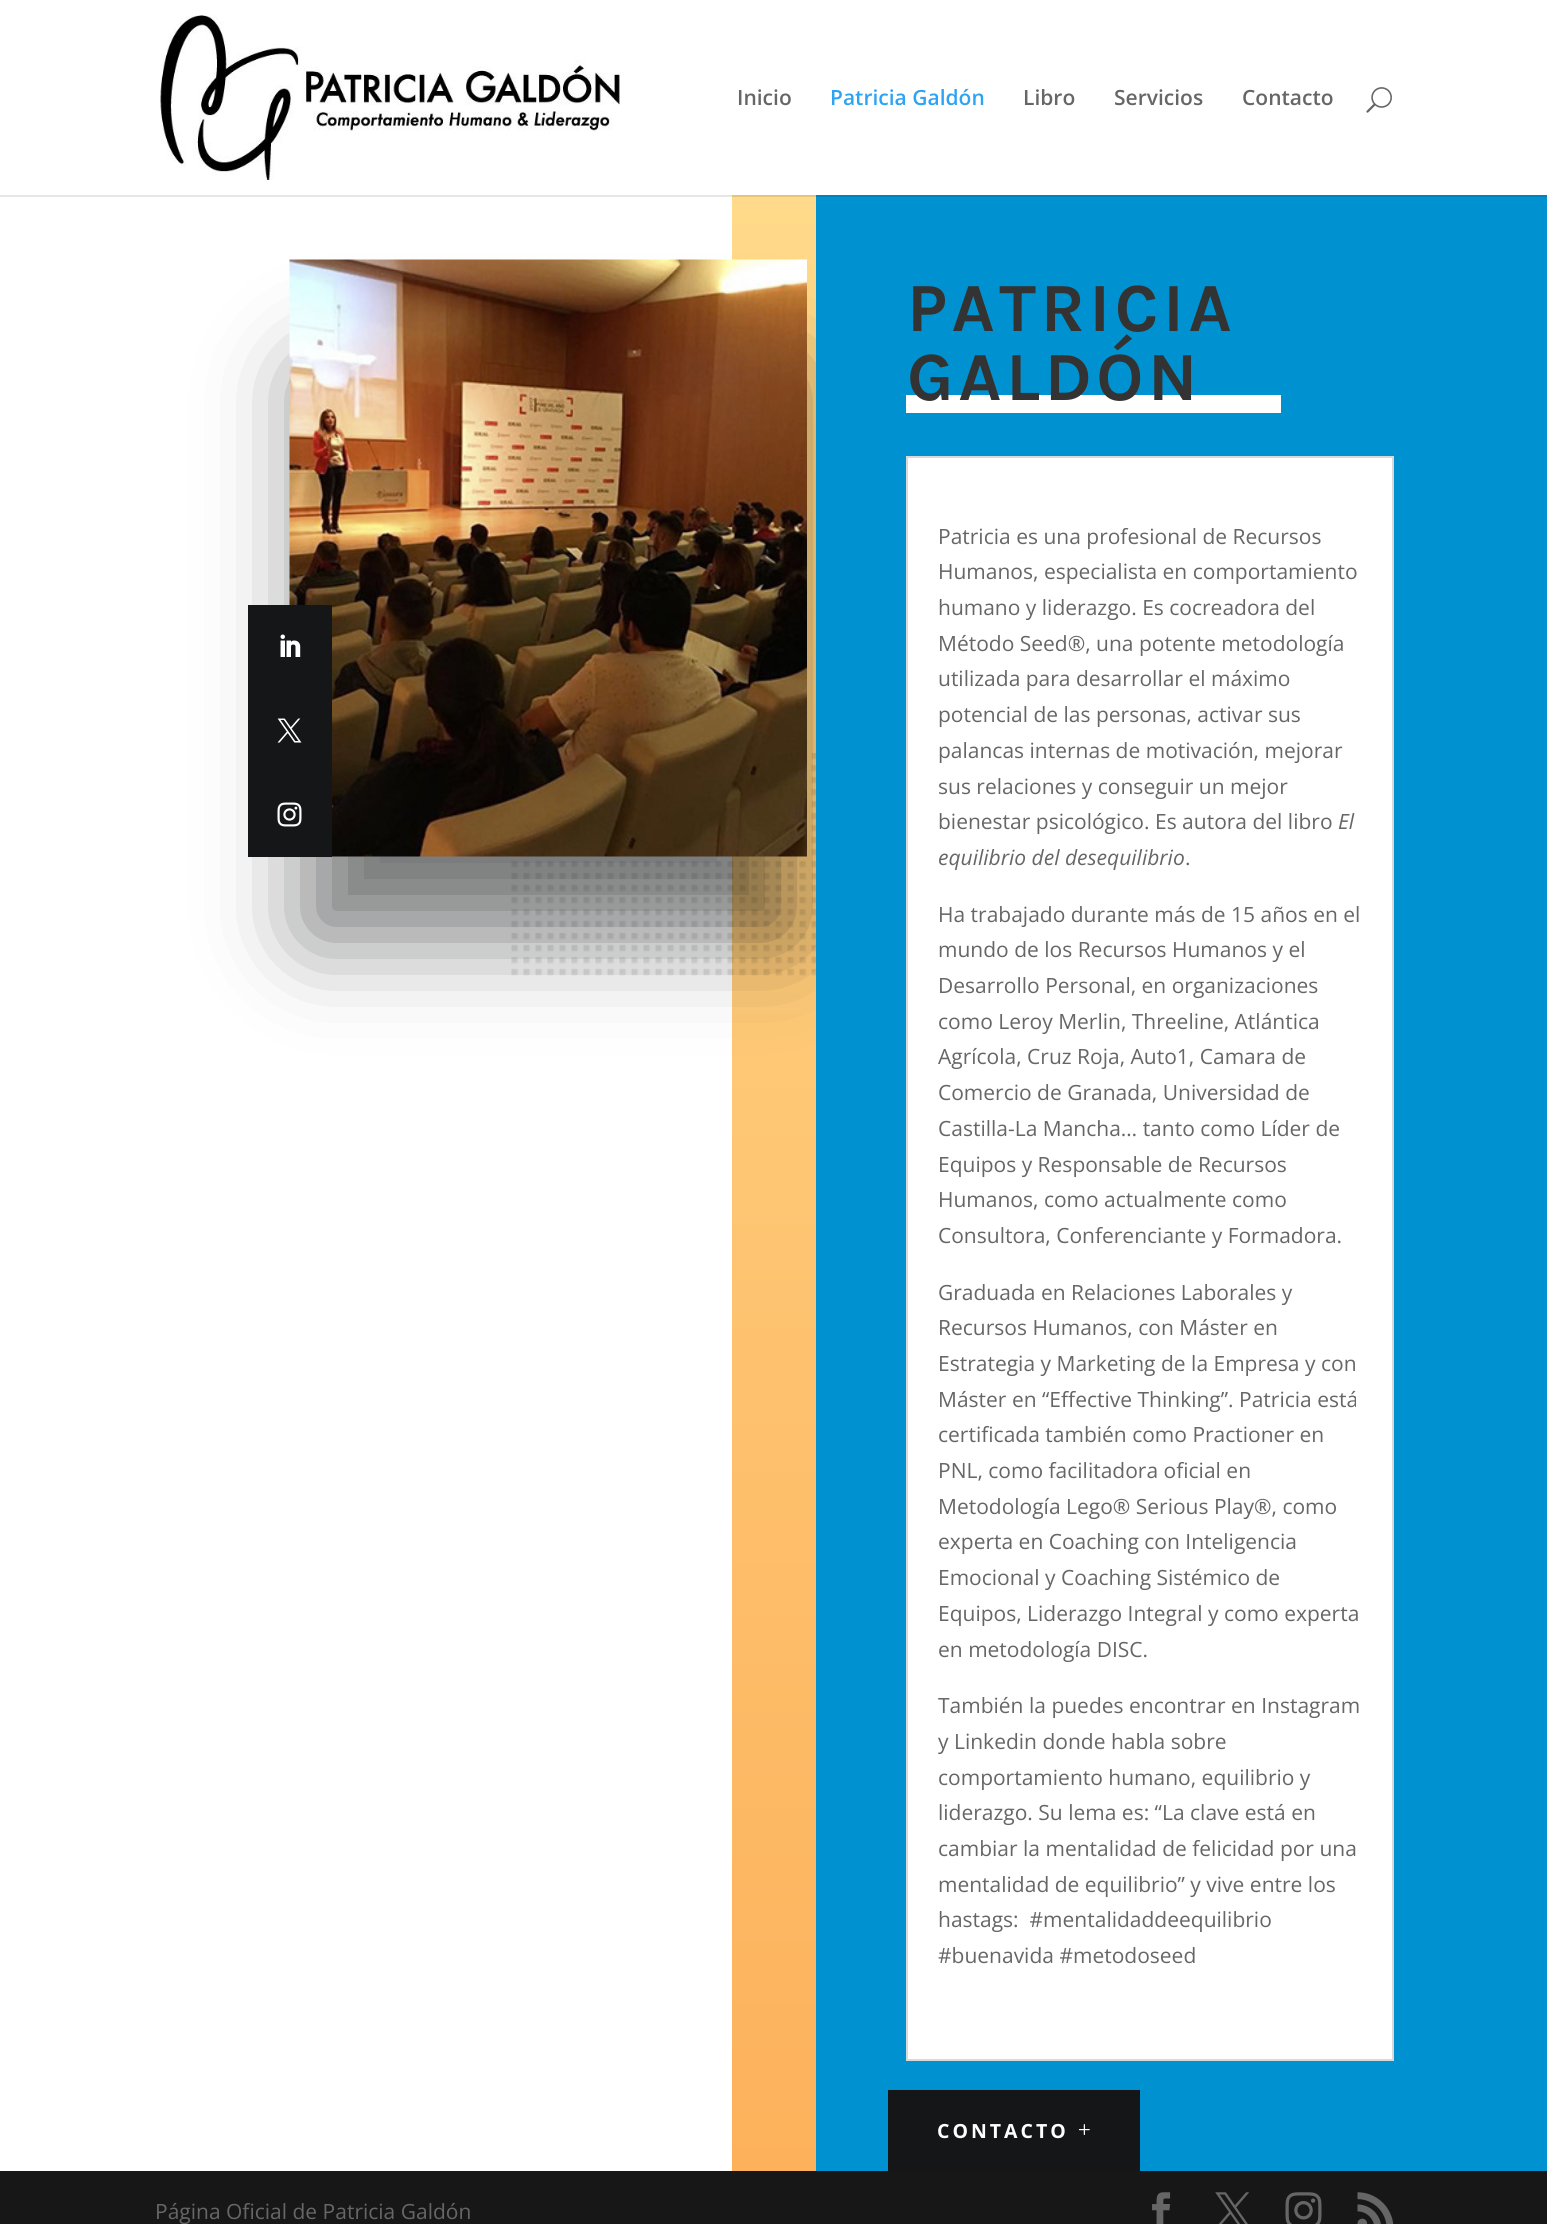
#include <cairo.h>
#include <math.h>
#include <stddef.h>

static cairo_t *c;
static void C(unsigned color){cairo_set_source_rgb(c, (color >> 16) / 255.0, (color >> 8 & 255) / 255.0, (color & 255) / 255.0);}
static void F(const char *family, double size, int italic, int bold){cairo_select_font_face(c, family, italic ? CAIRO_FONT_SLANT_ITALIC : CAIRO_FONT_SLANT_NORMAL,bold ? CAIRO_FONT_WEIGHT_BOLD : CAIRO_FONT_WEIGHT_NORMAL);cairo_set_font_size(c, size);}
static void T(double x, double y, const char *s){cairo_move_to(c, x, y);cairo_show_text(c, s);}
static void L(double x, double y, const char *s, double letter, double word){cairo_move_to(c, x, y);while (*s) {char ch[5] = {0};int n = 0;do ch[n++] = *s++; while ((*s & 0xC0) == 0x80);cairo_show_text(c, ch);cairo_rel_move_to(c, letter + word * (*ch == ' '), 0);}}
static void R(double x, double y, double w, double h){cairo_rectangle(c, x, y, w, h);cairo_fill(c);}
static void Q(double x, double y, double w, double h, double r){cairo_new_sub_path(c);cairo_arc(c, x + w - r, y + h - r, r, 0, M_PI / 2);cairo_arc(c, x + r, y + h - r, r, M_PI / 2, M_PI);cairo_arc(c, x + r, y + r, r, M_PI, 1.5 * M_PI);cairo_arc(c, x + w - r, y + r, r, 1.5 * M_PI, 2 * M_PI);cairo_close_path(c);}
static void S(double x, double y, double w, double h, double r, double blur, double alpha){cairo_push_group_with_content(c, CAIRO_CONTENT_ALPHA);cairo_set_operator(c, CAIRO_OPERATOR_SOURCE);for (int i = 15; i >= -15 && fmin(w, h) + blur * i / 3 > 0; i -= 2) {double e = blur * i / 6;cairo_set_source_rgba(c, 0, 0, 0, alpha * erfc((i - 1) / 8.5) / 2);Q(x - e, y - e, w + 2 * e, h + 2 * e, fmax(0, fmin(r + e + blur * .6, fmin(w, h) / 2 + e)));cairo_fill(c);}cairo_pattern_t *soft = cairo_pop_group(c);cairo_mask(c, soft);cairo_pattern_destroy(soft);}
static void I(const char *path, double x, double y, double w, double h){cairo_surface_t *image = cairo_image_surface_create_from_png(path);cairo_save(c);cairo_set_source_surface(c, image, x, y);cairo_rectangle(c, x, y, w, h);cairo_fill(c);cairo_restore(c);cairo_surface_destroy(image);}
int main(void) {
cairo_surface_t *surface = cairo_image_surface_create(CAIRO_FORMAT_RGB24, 1547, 2224);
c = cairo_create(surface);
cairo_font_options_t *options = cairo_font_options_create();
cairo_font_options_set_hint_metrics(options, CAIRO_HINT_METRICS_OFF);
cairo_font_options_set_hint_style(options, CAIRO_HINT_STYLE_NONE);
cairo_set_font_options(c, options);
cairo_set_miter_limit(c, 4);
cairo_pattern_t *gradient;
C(0x171717);
cairo_paint(c);
C(0xffffff);
R(0,0,1547,195);
I("1.png",160,15,460,165);
F("Open Sans SemiBold",21,0,0);
C(0x666666);
T(737,105,"Inicio");
C(0x2ea3f2);
T(830,105,"Patricia Galdón");
C(0x666666);
T(1023,105,"Libro");
T(1114,105,"Servicios");
T(1242,105,"Contacto");
I("2.png",1366,87,26,26);
gradient = cairo_pattern_create_linear(774,151,774,2171);
cairo_pattern_add_color_stop_rgba(gradient,0,1,0.859,0.545,1);
cairo_pattern_add_color_stop_rgba(gradient,1,0.992,0.694,0.357,1);
cairo_set_source(c,gradient);
cairo_pattern_destroy(gradient);
R(732,197,84,1974);
gradient = cairo_pattern_create_linear(774,151,774,2171);
cairo_pattern_add_color_stop_rgba(gradient,0,0.902,0.773,0.49,1);
cairo_pattern_add_color_stop_rgba(gradient,1,0.894,0.624,0.322,1);
cairo_set_source(c,gradient);
cairo_pattern_destroy(gradient);
R(732,195,84,2);
C(0xffffff);
R(0,197,732,1974);
C(0xe6e6e6);
R(0,195,732,2);
I("3.png",511,753,305,223);
C(0x141617);
S(308,374,481,561,0,48,.59);
I("4.png",289,259,518,598);
C(0x141617);
R(248,605,84,252);
I("5.png",280,634,21,23);
I("6.png",277,718,25,25);
I("7.png",277,802,25,25);
C(0x0092d0);
R(816,197,731,1974);
C(0x0083bb);
R(816,195,731,2);
F("Karla",69,0,1);
C(0x333333);
L(907,331,"PATRICIA",4.5,0);
C(0xffffff);
R(906,395,375,18);
C(0x333333);
L(907,400,"GALDÓN",4.5,0);
C(0xffffff);
cairo_rectangle(c,907,457,486,1603);
cairo_fill_preserve(c);
C(0xd9d9d9);
cairo_stroke(c);
F("Open Sans",21,0,0);
C(0x666666);
T(938,544,"Patricia es una profesional de Recursos");
T(938,579,"Humanos, especialista en comportamiento");
T(938,615,"humano y liderazgo. Es cocreadora del");
T(938,651,"Método Seed®, una potente metodología");
T(938,686,"utilizada para desarrollar el máximo");
T(938,722,"potencial de las personas, activar sus");
T(938,758,"palancas internas de motivación, mejorar");
T(938,794,"sus relaciones y conseguir un mejor");
T(938,829,"bienestar psicológico. Es autora del libro");
F("Open Sans",21,1,0);
T(1338,829,"El");
T(938,865,"equilibrio del desequilibrio");
F("Open Sans",21,0,0);
T(1185,865,".");
T(938,922,"Ha trabajado durante más de 15 años en el");
T(938,957,"mundo de los Recursos Humanos y el");
T(938,993,"Desarrollo Personal, en organizaciones");
T(938,1029,"como Leroy Merlin, Threeline, Atlántica");
T(938,1064,"Agrícola, Cruz Roja, Auto1, Camara de");
T(938,1100,"Comercio de Granada, Universidad de");
T(938,1136,"Castilla-La Mancha… tanto como Líder de");
T(938,1172,"Equipos y Responsable de Recursos");
T(938,1207,"Humanos, como actualmente como");
T(938,1243,"Consultora, Conferenciante y Formadora.");
T(938,1300,"Graduada en Relaciones Laborales y");
T(938,1335,"Recursos Humanos, con Máster en");
T(938,1371,"Estrategia y Marketing de la Empresa y con");
T(938,1407,"Máster en “Effective Thinking”. Patricia está");
T(938,1442,"certificada también como Practioner en");
T(938,1478,"PNL, como facilitadora oficial en");
T(938,1514,"Metodología Lego® Serious Play®, como");
T(938,1549,"experta en Coaching con Inteligencia");
T(938,1585,"Emocional y Coaching Sistémico de");
T(938,1621,"Equipos, Liderazgo Integral y como experta");
T(938,1657,"en metodología DISC.");
T(938,1713,"También la puedes encontrar en Instagram");
T(938,1749,"y Linkedin donde habla sobre");
T(938,1785,"comportamiento humano, equilibrio y");
T(938,1820,"liderazgo. Su lema es: “La clave está en");
T(938,1856,"cambiar la mentalidad de felicidad por una");
T(938,1892,"mentalidad de equilibrio” y vive entre los");
T(938,1927,"hastags:  #mentalidaddeequilibrio");
T(938,1963,"#buenavida #metodoseed");
C(0x141617);
R(888,2090,252,81);
F("Open Sans",19.5,0,1);
C(0xffffff);
L(937,2138,"CONTACTO",3,0);
I("8.png",1078,2124,12,11);
F("Open Sans",21,0,0);
C(0x666666);
T(155,2219,"Página Oficial de Patricia Galdón");
I("9.png",1152,2192,19,32);
I("10.png",1215,2192,34,32);
I("11.png",1285,2192,37,32);
I("12.png",1357,2192,37,32);
cairo_surface_write_to_png(surface, "o.png");
cairo_font_options_destroy(options);
cairo_destroy(c);
cairo_surface_destroy(surface);
return 0;
}
